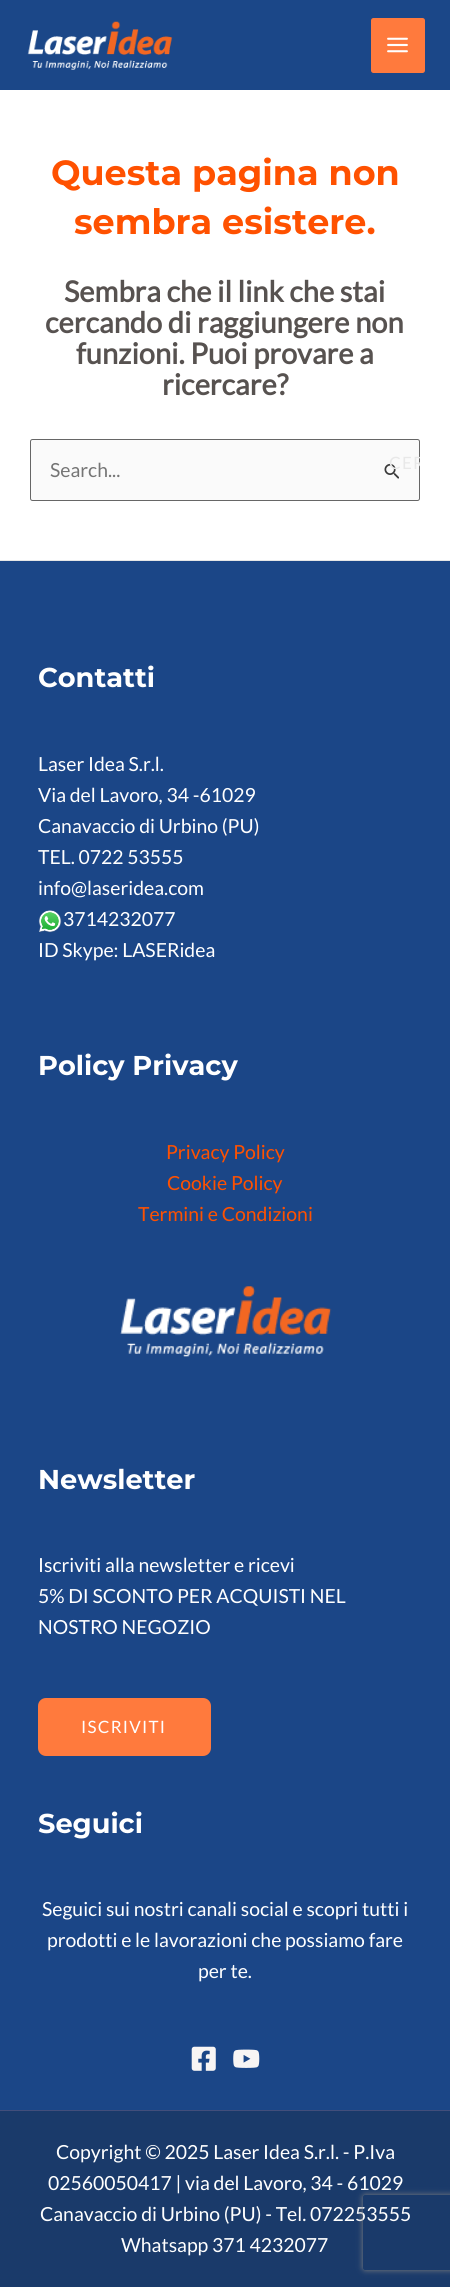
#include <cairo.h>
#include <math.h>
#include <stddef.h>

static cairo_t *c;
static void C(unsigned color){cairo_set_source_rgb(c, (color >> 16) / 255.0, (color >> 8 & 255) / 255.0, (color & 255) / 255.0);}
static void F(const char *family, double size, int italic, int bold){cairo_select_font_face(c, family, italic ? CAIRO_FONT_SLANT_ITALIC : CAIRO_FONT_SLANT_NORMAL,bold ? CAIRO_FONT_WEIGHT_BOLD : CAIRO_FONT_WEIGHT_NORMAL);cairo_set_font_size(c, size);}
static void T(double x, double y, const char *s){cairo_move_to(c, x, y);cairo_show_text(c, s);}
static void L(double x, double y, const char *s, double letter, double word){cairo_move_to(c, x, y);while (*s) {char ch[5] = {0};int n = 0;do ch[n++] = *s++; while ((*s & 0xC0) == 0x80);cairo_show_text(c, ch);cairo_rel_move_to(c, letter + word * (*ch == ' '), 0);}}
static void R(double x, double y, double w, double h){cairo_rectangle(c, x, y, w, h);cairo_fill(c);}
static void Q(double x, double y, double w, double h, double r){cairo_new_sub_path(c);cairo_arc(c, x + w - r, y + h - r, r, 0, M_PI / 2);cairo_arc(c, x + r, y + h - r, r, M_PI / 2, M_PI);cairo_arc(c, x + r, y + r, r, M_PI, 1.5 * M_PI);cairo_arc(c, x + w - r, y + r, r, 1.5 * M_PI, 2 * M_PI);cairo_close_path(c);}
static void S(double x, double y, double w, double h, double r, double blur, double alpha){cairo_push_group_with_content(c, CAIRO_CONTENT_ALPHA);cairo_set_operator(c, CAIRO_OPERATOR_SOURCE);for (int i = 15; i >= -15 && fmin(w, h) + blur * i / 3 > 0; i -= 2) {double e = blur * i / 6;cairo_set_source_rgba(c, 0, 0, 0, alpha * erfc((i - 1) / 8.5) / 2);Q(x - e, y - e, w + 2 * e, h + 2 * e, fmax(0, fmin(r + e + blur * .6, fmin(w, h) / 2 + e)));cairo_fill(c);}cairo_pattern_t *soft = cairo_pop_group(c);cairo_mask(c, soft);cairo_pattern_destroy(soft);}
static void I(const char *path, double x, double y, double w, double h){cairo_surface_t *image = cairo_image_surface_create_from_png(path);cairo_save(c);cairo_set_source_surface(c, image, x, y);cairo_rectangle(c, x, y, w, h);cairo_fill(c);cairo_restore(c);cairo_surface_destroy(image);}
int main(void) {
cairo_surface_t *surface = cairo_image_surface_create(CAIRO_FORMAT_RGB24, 450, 2287);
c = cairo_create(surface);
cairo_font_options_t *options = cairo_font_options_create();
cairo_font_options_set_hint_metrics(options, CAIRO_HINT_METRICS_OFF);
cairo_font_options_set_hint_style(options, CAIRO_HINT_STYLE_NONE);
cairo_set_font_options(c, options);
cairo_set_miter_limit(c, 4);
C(0xffffff);
cairo_paint(c);
C(0x1b4788);
R(0,0,450,90);
I("1.png",27,21,146,49);
C(0xff7a3d);
Q(371,18,54,55,2.5);
cairo_fill(c);
I("2.png",387,37,21,16);
F("Montserrat Thin",35,0,0);
C(0xff5100);
T(51,185,"Questa pagina non");
T(74,234,"sembra esistere.");
F("Lato",29,0,1);
C(0x575250);
T(64,302,"Sembra che il link che stai");
T(45,333,"cercando di raggiungere non");
T(76,364,"funzioni. Puoi provare a");
T(162,395,"ricercare?");
C(0xfafafa);
Q(30.5,439.5,389,61,2);
cairo_fill_preserve(c);
C(0x666666);
cairo_set_line_width(c,1);
cairo_stroke(c);
F("Lato",19.4,0,0);
C(0x757575);
T(50,477,"Search...");
I("3.png",384,463,15,16);
cairo_save(c);
Q(364,439,56,49,2.5);
cairo_clip(c);
F("Lato",17,0,0);
C(0xe8e8e8);
L(389,469,"CER",1.25,0);
cairo_restore(c);
C(0x1b4687);
R(0,561,450,1549);
C(0xe6e6e6);
R(0,560,450,1);
F("Montserrat Thin",27.25,0,0);
C(0xffffff);
T(38,687,"Contatti");
F("Lato",19.4,0,0);
T(38,771,"Laser Idea S.r.l.");
T(38,802,"Via del Lavoro, 34 -61029");
T(38,833,"Canavaccio di Urbino (PU)");
T(38,864,"TEL. 0722 53555");
T(38,895,"info@laseridea.com");
I("4.png",38,910,24,23);
T(63,926,"3714232077");
T(38,957,"ID Skype: LASERidea");
F("Montserrat Thin",27.25,0,0);
T(38,1075,"Policy Privacy");
F("Lato",19.4,0,0);
C(0xff5100);
T(166,1159,"Privacy Policy");
T(167,1190,"Cookie Policy");
T(138,1221,"Termini e Condizioni");
I("5.png",120,1286,212,71);
F("Montserrat Thin",27.25,0,0);
C(0xffffff);
T(38,1489,"Newsletter");
F("Lato",19.4,0,0);
T(38,1572,"Iscriviti alla newsletter e ricevi");
T(38,1603,"5% DI SCONTO PER ACQUISTI NEL");
T(38,1634,"NOSTRO NEGOZIO");
C(0xff7a3d);
Q(38,1698,173,58,8);
cairo_fill(c);
F("Lato",17,0,0);
C(0xffffff);
L(81,1733,"ISCRIVITI",1.25,0);
F("Montserrat Thin",27.25,0,0);
T(38,1833,"Seguici");
F("Lato",19.4,0,0);
T(42,1916,"Seguici sui nostri canali social e scopri tutti i");
T(47,1947,"prodotti e le lavorazioni che possiamo fare");
T(198,1978,"per te.");
I("6.png",191,2046,25,25);
I("7.png",233,2049,27,19);
C(0x1a3a6a);
R(0,2111,450,176);
C(0x424e7b);
R(0,2110,450,1);
C(0xffffff);
T(56,2159,"Copyright © 2025 Laser Idea S.r.l. - P.Iva");
T(48,2190,"02560050417 | via del Lavoro, 34 - 61029");
T(40,2221,"Canavaccio di Urbino (PU) - Tel. 072253555");
T(121,2252,"Whatsapp 371 4232077");
cairo_save(c);
cairo_set_fill_rule(c,CAIRO_FILL_RULE_EVEN_ODD);
cairo_new_path(c);
cairo_move_to(c,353,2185);
cairo_line_to(c,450,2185);
cairo_line_to(c,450,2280);
cairo_line_to(c,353,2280);
cairo_close_path(c);
cairo_move_to(c,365.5,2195);
cairo_line_to(c,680.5,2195);
cairo_curve_to(c,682,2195,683,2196,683,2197.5);
cairo_line_to(c,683,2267.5);
cairo_curve_to(c,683,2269,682,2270,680.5,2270);
cairo_line_to(c,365.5,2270);
cairo_curve_to(c,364,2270,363,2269,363,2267.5);
cairo_line_to(c,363,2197.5);
cairo_curve_to(c,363,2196,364,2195,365.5,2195);
cairo_close_path(c);
cairo_clip(c);
C(0x808080);
S(363,2195,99,75,2.5,3,1);
cairo_restore(c);
cairo_surface_write_to_png(surface, "o.png");
cairo_font_options_destroy(options);
cairo_destroy(c);
cairo_surface_destroy(surface);
return 0;
}
